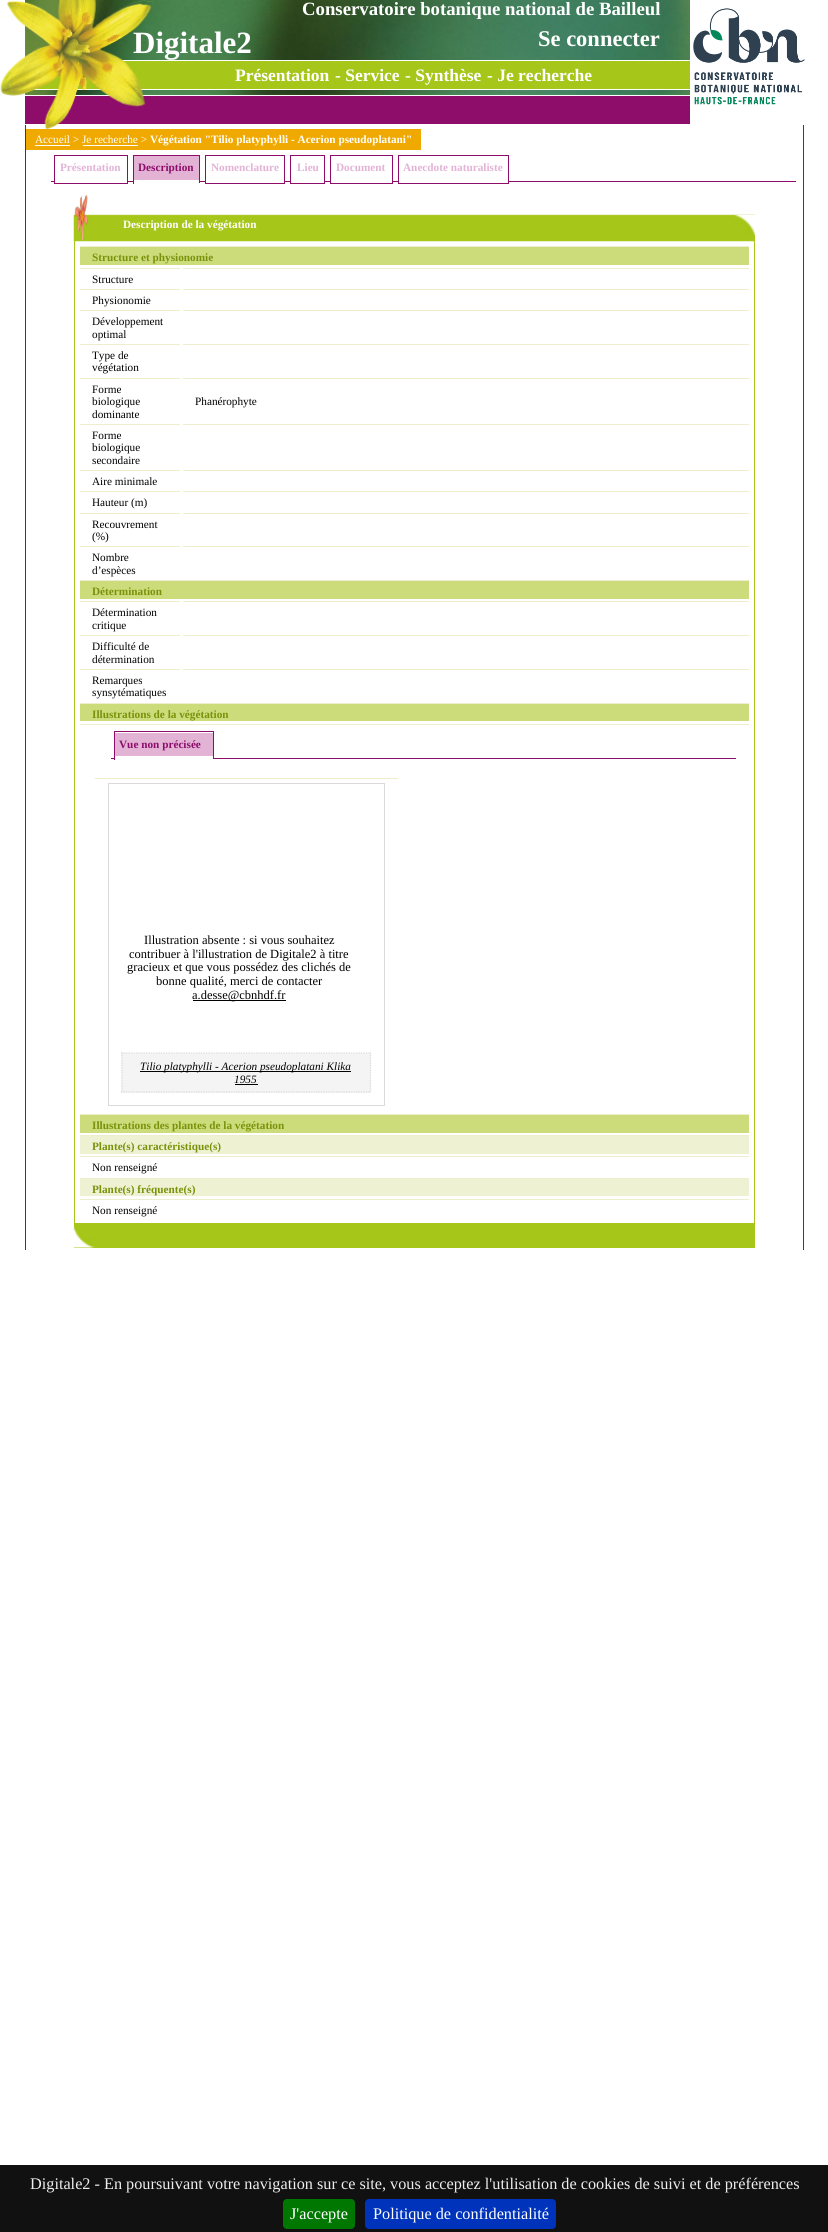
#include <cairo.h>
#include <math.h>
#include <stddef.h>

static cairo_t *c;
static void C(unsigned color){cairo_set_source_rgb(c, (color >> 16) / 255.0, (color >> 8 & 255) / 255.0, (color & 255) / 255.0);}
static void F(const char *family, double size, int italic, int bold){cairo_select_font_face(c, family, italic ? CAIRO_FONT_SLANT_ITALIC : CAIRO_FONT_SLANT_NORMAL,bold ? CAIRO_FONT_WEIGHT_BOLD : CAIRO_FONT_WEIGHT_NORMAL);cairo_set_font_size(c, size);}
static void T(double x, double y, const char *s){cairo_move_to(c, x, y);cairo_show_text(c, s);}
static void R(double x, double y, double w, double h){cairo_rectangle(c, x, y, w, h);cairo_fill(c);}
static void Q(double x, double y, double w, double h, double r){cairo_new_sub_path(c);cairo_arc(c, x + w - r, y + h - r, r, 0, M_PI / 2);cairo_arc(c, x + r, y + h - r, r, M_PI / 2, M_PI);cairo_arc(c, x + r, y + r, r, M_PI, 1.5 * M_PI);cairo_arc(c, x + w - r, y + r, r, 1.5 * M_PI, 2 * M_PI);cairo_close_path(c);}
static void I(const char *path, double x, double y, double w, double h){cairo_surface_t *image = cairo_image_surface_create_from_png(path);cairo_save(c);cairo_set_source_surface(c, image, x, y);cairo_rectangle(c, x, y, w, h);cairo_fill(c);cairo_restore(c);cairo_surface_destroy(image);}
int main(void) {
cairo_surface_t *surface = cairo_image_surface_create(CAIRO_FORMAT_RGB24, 828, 2232);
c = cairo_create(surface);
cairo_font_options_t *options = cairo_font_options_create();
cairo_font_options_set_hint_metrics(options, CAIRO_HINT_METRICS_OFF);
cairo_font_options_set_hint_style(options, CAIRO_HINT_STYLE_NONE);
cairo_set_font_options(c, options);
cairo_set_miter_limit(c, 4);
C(0xffffff);
cairo_paint(c);
I("1.png",25,0,665,95);
F("Liberation Serif",31,0,1);
C(0xffffff);
T(133,53,"Digitale2");
C(0xa6c619);
R(34,61,656,28);
C(0xffffff);
R(121,60,569,1);
R(25,89,665,1);
C(0x8e0d6a);
R(25,96,665,28);
R(25,125,1,1125);
I("2.png",0,0,155,129);
F("Liberation Serif",18.75,0,1);
C(0xffffff);
T(302,15,"Conservatoire botanique national de Bailleul");
F("Liberation Serif",22.5,0,1);
T(538,46,"Se connecter");
I("3.png",690,0,115,124);
F("Liberation Serif",17.5,0,1);
T(235,81,"Présentation");
T(335,81,"- Service");
T(405,81,"- Synthèse");
T(487,81,"- Je recherche");
C(0x8e0d6a);
R(803,125,1,1125);
C(0xf0a901);
R(26,129,395,21);
F("Liberation Serif",11.25,0,0);
C(0xffffff);
T(35,143,"Accueil > Je recherche >");
R(35,145,35,1);
F("Liberation Serif",11.25,0,1);
T(150,143,"Végétation \"Tilio platyphylli - Acerion pseudoplatani\"");
R(83,145,55,1);
C(0x8e0d6a);
R(51,181,745,1);
C(0xffffff);
R(55,181,72,1);
cairo_rectangle(c,54.5,155.5,73,28);
C(0x8e0d6a);
cairo_set_line_width(c,1);
cairo_stroke(c);
C(0xe3b3d6);
T(60,171,"Présentation");
C(0xffffff);
R(134,181,65,1);
C(0x8e0d6a);
R(133,155,67,1);
R(199,155,1,29);
C(0xffffff);
R(199,183,1,1);
C(0x8e0d6a);
R(133,155,1,29);
C(0xe3b3d6);
R(134,156,65,24);
C(0x8e0d6a);
T(138,171,"Description");
C(0xffffff);
R(206,181,78,1);
cairo_rectangle(c,205.5,155.5,79,28);
C(0x8e0d6a);
cairo_stroke(c);
C(0xe3b3d6);
T(211,171,"Nomenclature");
C(0xffffff);
R(291,181,33,1);
cairo_rectangle(c,290.5,155.5,34,28);
C(0x8e0d6a);
cairo_stroke(c);
C(0xe3b3d6);
T(297,171,"Lieu");
C(0xffffff);
R(331,181,61,1);
cairo_rectangle(c,330.5,155.5,62,28);
C(0x8e0d6a);
cairo_stroke(c);
C(0xe3b3d6);
T(336,171,"Document");
C(0xffffff);
R(399,181,109,1);
cairo_rectangle(c,398.5,155.5,110,28);
C(0x8e0d6a);
cairo_stroke(c);
C(0xe3b3d6);
T(403,171,"Anecdote naturaliste");
I("4.png",73,194,682,48);
C(0xffffff);
T(123,228,"Description de la végétation");
I("5.png",735,215,20,20);
C(0xa6c619);
R(754,241,1,982);
R(74,241,1,982);
C(0xcddc7b);
R(80,247,669,18);
C(0xeeeecc);
R(80,246,669,1);
C(0x79920b);
T(92,261,"Structure et physionomie");
C(0xeeeecc);
R(183,268,566,1);
R(80,268,100,1);
F("Liberation Serif",11.25,0,0);
C(0x000000);
T(92,283,"Structure");
C(0xeeeecc);
R(183,289,566,1);
R(80,289,100,1);
C(0x000000);
T(92,304,"Physionomie");
C(0xeeeecc);
R(183,310,566,1);
R(80,310,100,1);
C(0x000000);
T(92,325,"Développement");
T(92,338,"optimal");
C(0xeeeecc);
R(183,344,566,1);
R(80,344,100,1);
C(0x000000);
T(92,359,"Type de");
T(92,371,"végétation");
C(0xeeeecc);
R(80,378,100,1);
C(0x000000);
T(92,393,"Forme");
T(92,405,"biologique");
T(92,418,"dominante");
C(0xeeeecc);
R(183,378,566,1);
C(0x000000);
T(195,405,"Phanérophyte");
C(0xeeeecc);
R(183,424,566,1);
R(80,424,100,1);
C(0x000000);
T(92,439,"Forme");
T(92,451,"biologique");
T(92,464,"secondaire");
C(0xeeeecc);
R(183,470,566,1);
R(80,470,100,1);
C(0x000000);
T(92,485,"Aire minimale");
C(0xeeeecc);
R(183,491,566,1);
R(80,491,100,1);
C(0x000000);
T(92,506,"Hauteur (m)");
C(0xeeeecc);
R(183,513,566,1);
R(80,513,100,1);
C(0x000000);
T(92,528,"Recouvrement");
T(92,540,"(%)");
C(0xeeeecc);
R(183,546,566,1);
R(80,546,100,1);
C(0x000000);
T(92,561,"Nombre");
T(92,574,"d’espèces");
C(0xcddc7b);
R(80,581,669,18);
C(0xeeeecc);
R(80,580,669,1);
F("Liberation Serif",11.25,0,1);
C(0x79920b);
T(92,595,"Détermination");
C(0xeeeecc);
R(183,601,566,1);
R(80,601,100,1);
F("Liberation Serif",11.25,0,0);
C(0x000000);
T(92,616,"Détermination");
T(92,629,"critique");
C(0xeeeecc);
R(183,635,566,1);
R(80,635,100,1);
C(0x000000);
T(92,650,"Difficulté de");
T(92,663,"détermination");
C(0xeeeecc);
R(183,669,566,1);
R(80,669,100,1);
C(0x000000);
T(92,684,"Remarques");
T(92,696,"synsytématiques");
C(0xcddc7b);
R(80,704,669,17);
C(0xeeeecc);
R(80,703,669,1);
F("Liberation Serif",11.25,0,1);
C(0x79920b);
T(92,718,"Illustrations de la végétation");
C(0xeeeecc);
R(80,724,669,1);
C(0x8e0d6a);
R(111,758,625,1);
C(0xffffff);
R(115,758,98,1);
C(0x8e0d6a);
R(114,731,100,1);
R(213,731,1,29);
C(0xffffff);
R(213,759,1,1);
C(0x8e0d6a);
R(114,731,1,29);
C(0xe3b3d6);
R(115,733,98,23);
C(0x8e0d6a);
T(119,748,"Vue non précisée");
C(0xeeeecc);
R(95,778,303,1);
cairo_rectangle(c,108.5,783.5,276,322);
C(0xdadada);
cairo_stroke(c);
F("Liberation Serif",12.5,0,0);
C(0x000000);
T(144,944,"Illustration absente : si vous souhaitez");
T(129,958,"contribuer à l'illustration de Digitale2 à titre");
T(127,971,"gracieux et que vous possédez des clichés de");
T(156,985,"bonne qualité, merci de contacter");
R(193,1000,93,1);
T(192,999,"a.desse@cbnhdf.fr");
C(0xf4f4f4);
R(121,1053,250,40);
cairo_new_path(c);
cairo_move_to(c,121,1053);
cairo_line_to(c,371,1053);
C(0xdadada);
cairo_set_line_width(c,1.2);
cairo_set_dash(c,(double[]){1.25,1.25},2,0);
cairo_stroke(c);
cairo_new_path(c);
cairo_move_to(c,370.5,1052.5);
cairo_line_to(c,370.5,1092.5);
cairo_stroke(c);
cairo_new_path(c);
cairo_move_to(c,121,1092);
cairo_line_to(c,371,1092);
cairo_stroke(c);
cairo_new_path(c);
cairo_move_to(c,122,1052.5);
cairo_line_to(c,122,1092.5);
cairo_stroke(c);
C(0x000000);
R(140,1071,211,1);
F("Liberation Serif",11.25,1,0);
T(140,1070,"Tilio platyphylli - Acerion pseudoplatani Klika");
T(234,1083,"1955");
R(235,1084,23,1);
C(0xcddc7b);
R(80,1115,669,18);
C(0xeeeecc);
R(80,1114,669,1);
F("Liberation Serif",11.25,0,1);
C(0x79920b);
T(92,1129,"Illustrations des plantes de la végétation");
C(0xeff2d2);
R(80,1136,669,18);
C(0xeeeecc);
R(80,1135,669,1);
C(0x79920b);
T(92,1150,"Plante(s) caractéristique(s)");
C(0xeeeecc);
R(80,1156,669,1);
F("Liberation Serif",11.25,0,0);
C(0x000000);
T(92,1171,"Non renseigné");
C(0xeff2d2);
R(80,1179,669,17);
C(0xeeeecc);
R(80,1178,669,1);
F("Liberation Serif",11.25,0,1);
C(0x79920b);
T(92,1193,"Plante(s) fréquente(s)");
C(0xeeeecc);
R(80,1199,669,1);
F("Liberation Serif",11.25,0,0);
C(0x000000);
T(92,1214,"Non renseigné");
C(0xa6c619);
R(74,1223,681,25);
I("6.png",73,1227,21,21);
C(0x111111);
R(0,2165,828,67);
F("Liberation Serif",16.25,0,0);
C(0xeeeeee);
T(30,2189,"Digitale2 - En poursuivant votre navigation sur ce site, vous acceptez l'utilisation de cookies de suivi et de préférences");
C(0x007700);
Q(283,2199,72,30,4);
cairo_fill(c);
C(0xffffff);
T(290,2219,"J'accepte");
C(0x0033bb);
Q(365,2199,191,30,4);
cairo_fill(c);
C(0xffffff);
T(373,2219,"Politique de confidentialité");
cairo_surface_write_to_png(surface, "o.png");
cairo_font_options_destroy(options);
cairo_destroy(c);
cairo_surface_destroy(surface);
return 0;
}
